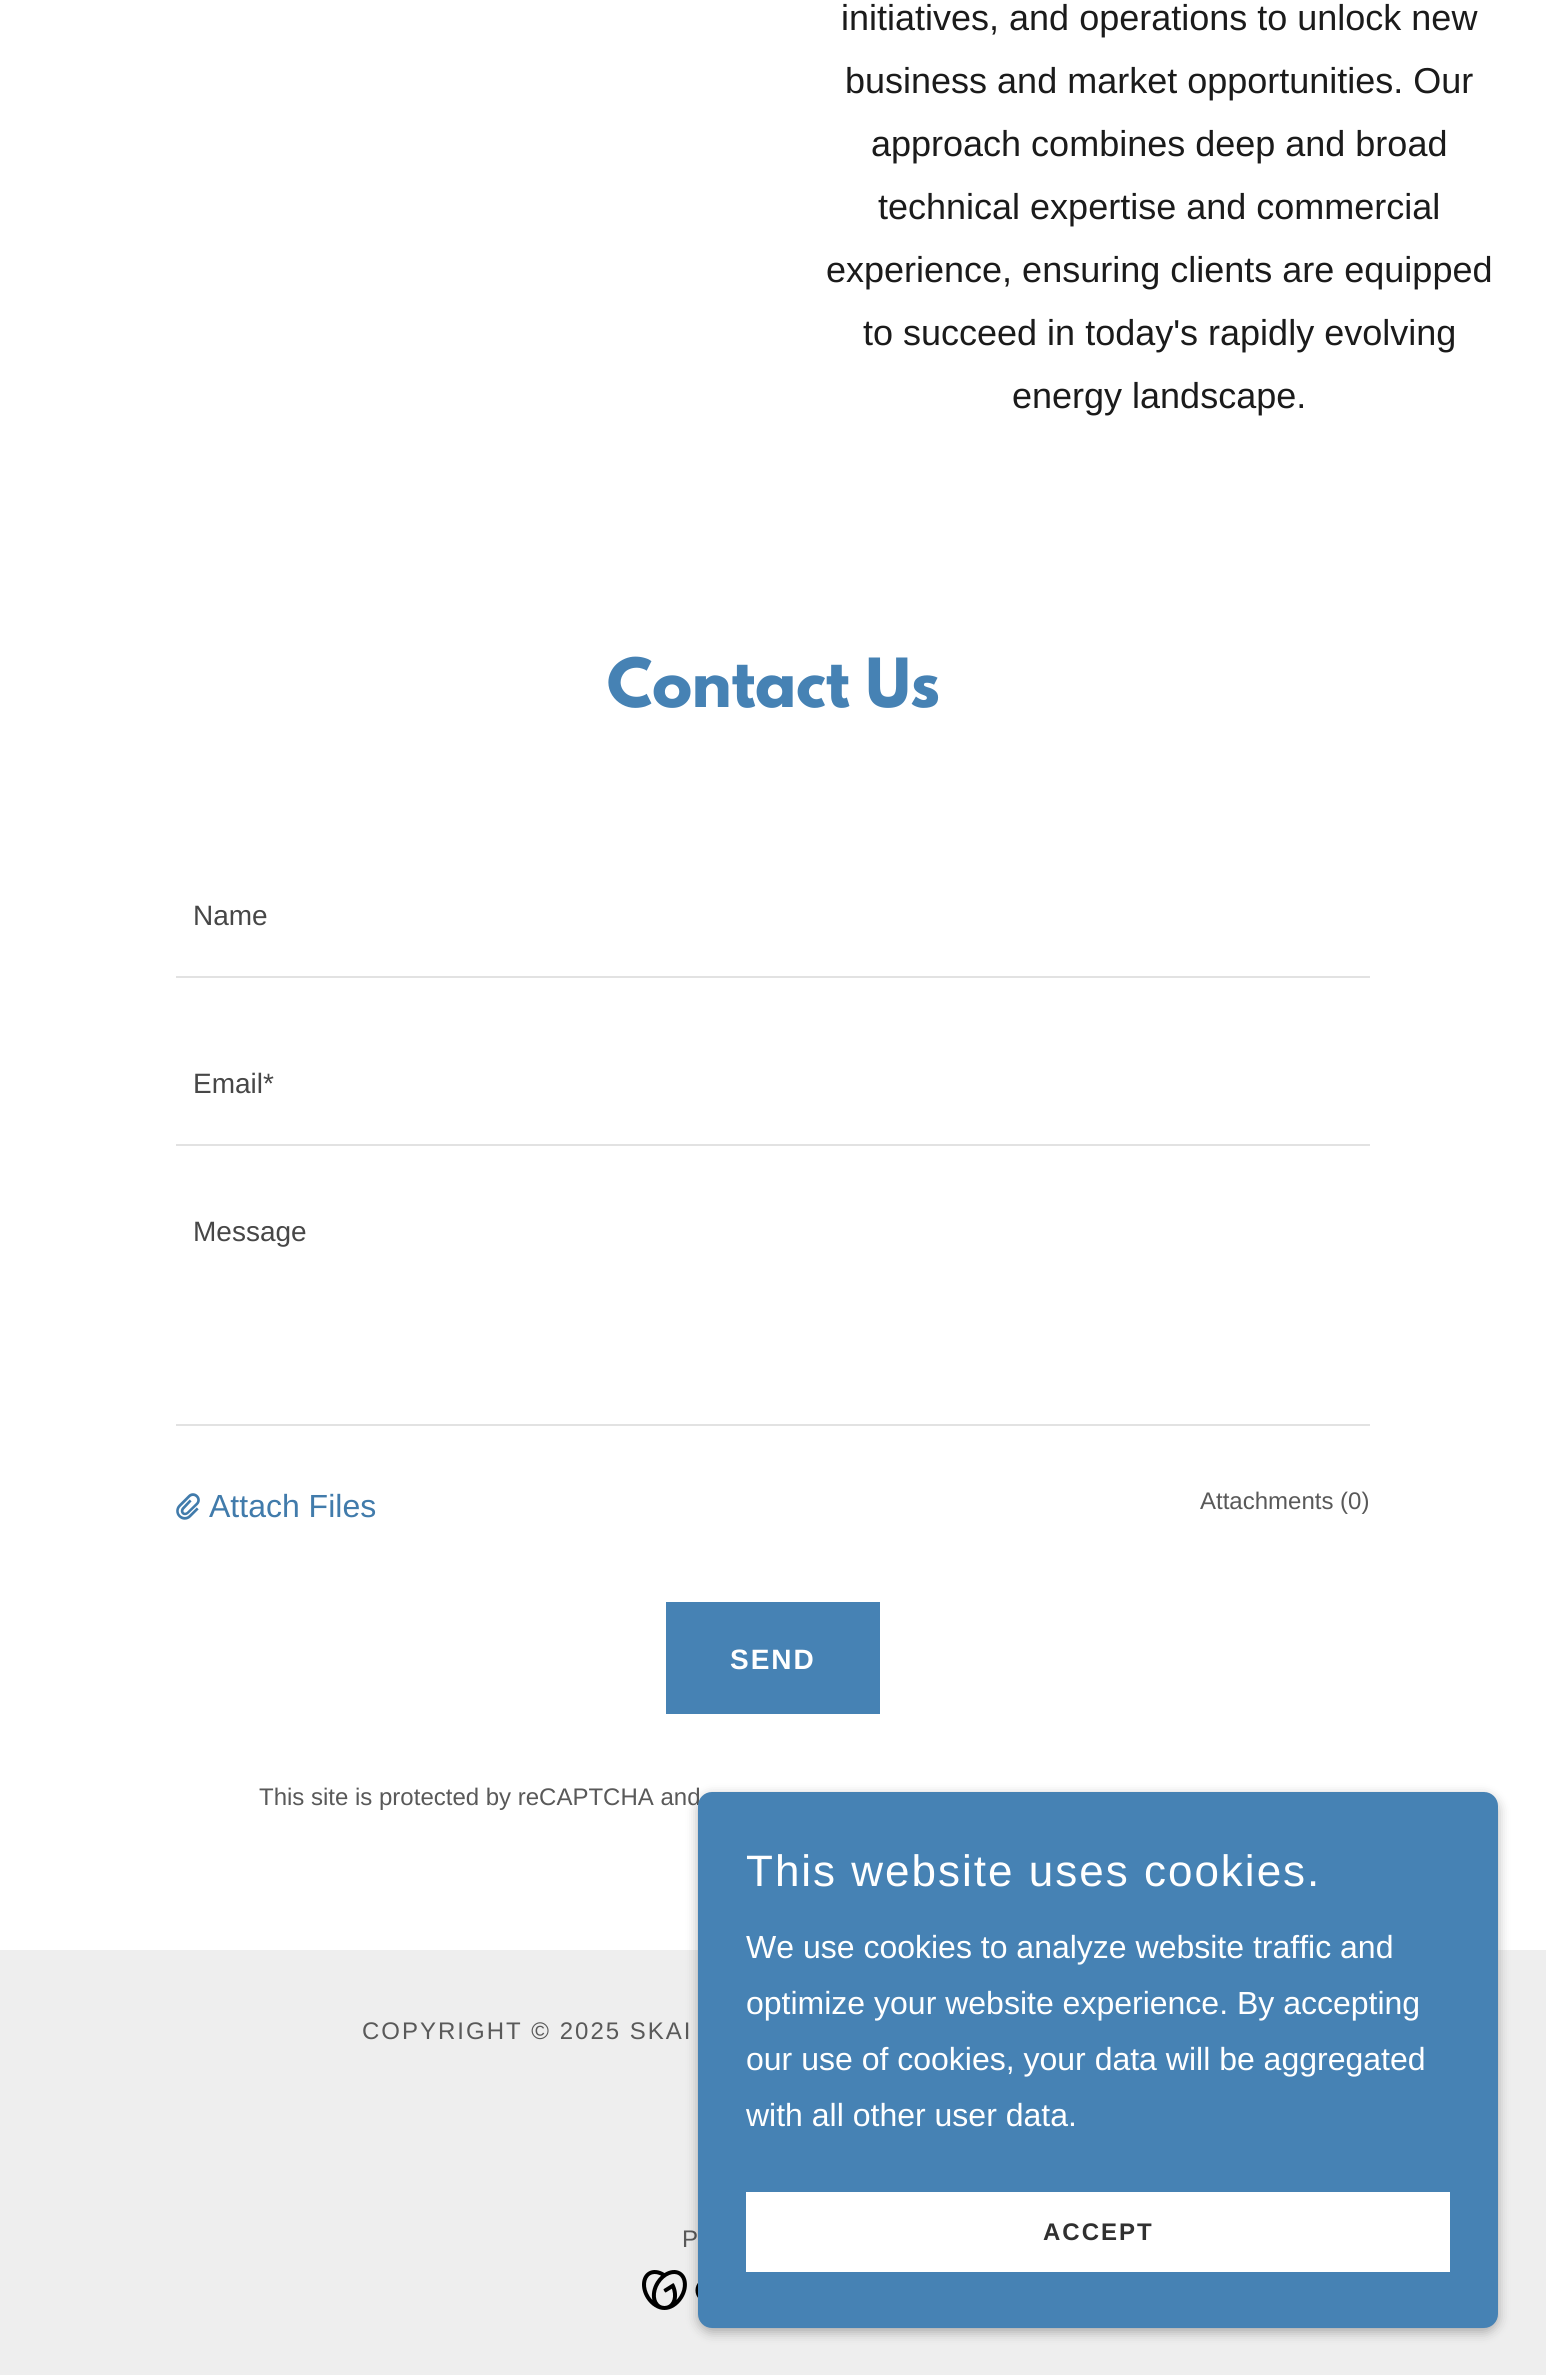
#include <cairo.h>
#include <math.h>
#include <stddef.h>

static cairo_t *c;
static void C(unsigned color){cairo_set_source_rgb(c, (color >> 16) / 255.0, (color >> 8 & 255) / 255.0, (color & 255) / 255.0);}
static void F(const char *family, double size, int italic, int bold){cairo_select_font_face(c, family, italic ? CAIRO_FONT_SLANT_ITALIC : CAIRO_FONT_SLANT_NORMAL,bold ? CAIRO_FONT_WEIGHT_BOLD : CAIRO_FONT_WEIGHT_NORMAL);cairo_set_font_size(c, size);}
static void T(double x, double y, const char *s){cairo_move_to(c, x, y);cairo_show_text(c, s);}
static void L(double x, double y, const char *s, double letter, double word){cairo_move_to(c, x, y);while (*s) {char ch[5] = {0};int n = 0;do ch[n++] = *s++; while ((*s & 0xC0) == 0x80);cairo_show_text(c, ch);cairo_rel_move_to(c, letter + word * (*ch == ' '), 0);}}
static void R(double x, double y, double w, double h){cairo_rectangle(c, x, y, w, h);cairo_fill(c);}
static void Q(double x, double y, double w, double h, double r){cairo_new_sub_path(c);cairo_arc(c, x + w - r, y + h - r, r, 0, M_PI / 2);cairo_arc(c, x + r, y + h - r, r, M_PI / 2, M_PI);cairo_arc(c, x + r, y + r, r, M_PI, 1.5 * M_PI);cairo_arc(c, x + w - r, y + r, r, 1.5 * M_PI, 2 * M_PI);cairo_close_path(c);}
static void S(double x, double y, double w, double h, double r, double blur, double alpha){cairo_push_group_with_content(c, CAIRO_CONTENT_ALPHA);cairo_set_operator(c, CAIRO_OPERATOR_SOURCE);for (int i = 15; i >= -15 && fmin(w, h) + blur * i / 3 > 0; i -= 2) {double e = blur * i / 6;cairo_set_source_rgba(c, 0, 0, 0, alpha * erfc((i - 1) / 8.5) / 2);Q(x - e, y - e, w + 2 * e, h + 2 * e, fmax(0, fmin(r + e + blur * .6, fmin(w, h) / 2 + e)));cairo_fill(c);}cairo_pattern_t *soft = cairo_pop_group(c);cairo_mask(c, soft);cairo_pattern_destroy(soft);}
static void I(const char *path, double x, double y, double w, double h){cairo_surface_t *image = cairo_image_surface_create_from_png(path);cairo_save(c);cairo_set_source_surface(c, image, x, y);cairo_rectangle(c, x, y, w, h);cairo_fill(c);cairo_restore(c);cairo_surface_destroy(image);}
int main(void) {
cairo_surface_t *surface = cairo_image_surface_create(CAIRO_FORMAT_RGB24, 1546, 2375);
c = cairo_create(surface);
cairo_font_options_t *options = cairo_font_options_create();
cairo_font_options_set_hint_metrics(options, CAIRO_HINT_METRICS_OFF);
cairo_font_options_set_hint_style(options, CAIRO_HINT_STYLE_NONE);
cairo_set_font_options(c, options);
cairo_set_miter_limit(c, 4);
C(0xffffff);
cairo_paint(c);
F("Liberation Sans",36,0,0);
C(0x1b1b1b);
T(841,30,"initiatives, and operations to unlock new");
T(845,93,"business and market opportunities. Our");
T(871,156,"approach combines deep and broad");
T(878,219,"technical expertise and commercial");
T(826,282,"experience, ensuring clients are equipped");
T(863,345,"to succeed in today's rapidly evolving");
T(1012,408,"energy landscape.");
F("League Spartan",60,0,1);
C(0x4682b4);
T(607,707,"Contact Us");
F("Liberation Sans",28,0,0);
C(0x474747);
T(193,925,"Name");
C(0xe2e2e2);
R(176,976,1194,2);
C(0x474747);
T(193,1093,"Email*");
C(0xe2e2e2);
R(176,1144,1194,2);
R(176,1424,1194,2);
C(0x474747);
T(193,1241,"Message");
I("1.png",176,1493,24,27);
F("Liberation Sans",32,0,0);
C(0x417bab);
T(209,1517,"Attach Files");
F("Liberation Sans",24,0,0);
C(0x595959);
T(1200,1509,"Attachments (0)");
C(0x4682b4);
R(666,1602,214,112);
F("Liberation Sans",28,0,1);
C(0xffffff);
L(730,1669,"SEND",2,0);
F("Liberation Sans",24,0,0);
C(0x595959);
T(259,1805,"This site is protected by reCAPTCHA and");
C(0xeeeeee);
R(0,1950,1546,425);
C(0x595959);
L(362,2039,"COPYRIGHT © 2025 SKAI",2,0);
L(682,2247,"P",2,0);
I("2.png",642,2270,56,40);
C(0x000000);
S(698,1796,800,536,14,6,.3);
C(0x4682b4);
Q(698,1792,800,536,14);
cairo_fill(c);
F("Liberation Sans",44,0,0);
C(0xffffff);
L(746,1886,"This website uses cookies.",2,0);
F("Liberation Sans",32,0,0);
T(746,1958,"We use cookies to analyze website traffic and");
T(746,2014,"optimize your website experience. By accepting");
T(746,2070,"our use of cookies, your data will be aggregated");
T(746,2126,"with all other user data.");
R(746,2192,704,80);
F("Liberation Sans",24,0,1);
C(0x303030);
L(1043,2240,"ACCEPT",2,0);
cairo_surface_write_to_png(surface, "o.png");
cairo_font_options_destroy(options);
cairo_destroy(c);
cairo_surface_destroy(surface);
return 0;
}
